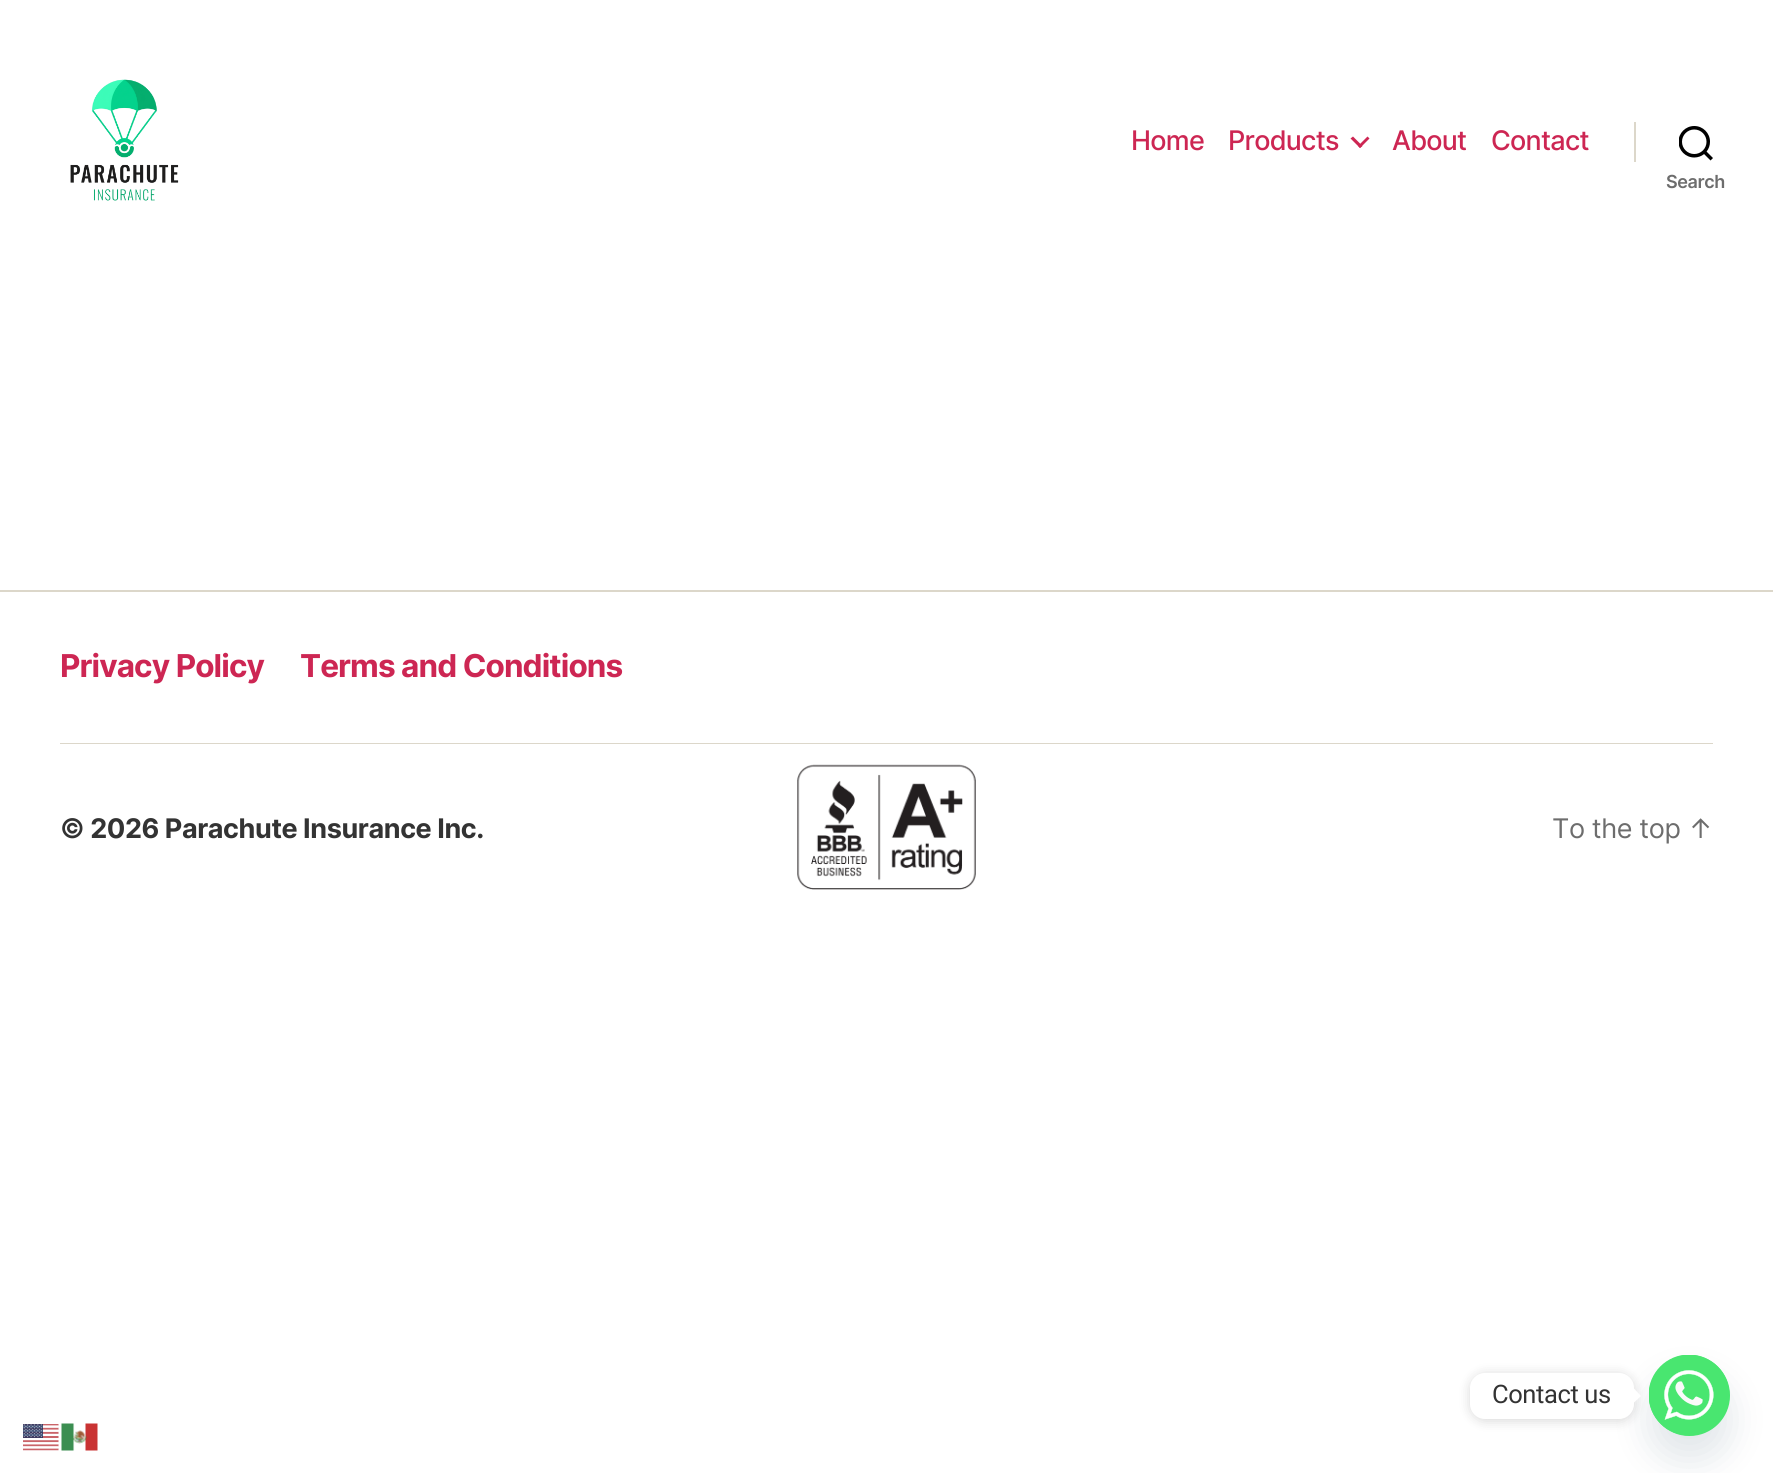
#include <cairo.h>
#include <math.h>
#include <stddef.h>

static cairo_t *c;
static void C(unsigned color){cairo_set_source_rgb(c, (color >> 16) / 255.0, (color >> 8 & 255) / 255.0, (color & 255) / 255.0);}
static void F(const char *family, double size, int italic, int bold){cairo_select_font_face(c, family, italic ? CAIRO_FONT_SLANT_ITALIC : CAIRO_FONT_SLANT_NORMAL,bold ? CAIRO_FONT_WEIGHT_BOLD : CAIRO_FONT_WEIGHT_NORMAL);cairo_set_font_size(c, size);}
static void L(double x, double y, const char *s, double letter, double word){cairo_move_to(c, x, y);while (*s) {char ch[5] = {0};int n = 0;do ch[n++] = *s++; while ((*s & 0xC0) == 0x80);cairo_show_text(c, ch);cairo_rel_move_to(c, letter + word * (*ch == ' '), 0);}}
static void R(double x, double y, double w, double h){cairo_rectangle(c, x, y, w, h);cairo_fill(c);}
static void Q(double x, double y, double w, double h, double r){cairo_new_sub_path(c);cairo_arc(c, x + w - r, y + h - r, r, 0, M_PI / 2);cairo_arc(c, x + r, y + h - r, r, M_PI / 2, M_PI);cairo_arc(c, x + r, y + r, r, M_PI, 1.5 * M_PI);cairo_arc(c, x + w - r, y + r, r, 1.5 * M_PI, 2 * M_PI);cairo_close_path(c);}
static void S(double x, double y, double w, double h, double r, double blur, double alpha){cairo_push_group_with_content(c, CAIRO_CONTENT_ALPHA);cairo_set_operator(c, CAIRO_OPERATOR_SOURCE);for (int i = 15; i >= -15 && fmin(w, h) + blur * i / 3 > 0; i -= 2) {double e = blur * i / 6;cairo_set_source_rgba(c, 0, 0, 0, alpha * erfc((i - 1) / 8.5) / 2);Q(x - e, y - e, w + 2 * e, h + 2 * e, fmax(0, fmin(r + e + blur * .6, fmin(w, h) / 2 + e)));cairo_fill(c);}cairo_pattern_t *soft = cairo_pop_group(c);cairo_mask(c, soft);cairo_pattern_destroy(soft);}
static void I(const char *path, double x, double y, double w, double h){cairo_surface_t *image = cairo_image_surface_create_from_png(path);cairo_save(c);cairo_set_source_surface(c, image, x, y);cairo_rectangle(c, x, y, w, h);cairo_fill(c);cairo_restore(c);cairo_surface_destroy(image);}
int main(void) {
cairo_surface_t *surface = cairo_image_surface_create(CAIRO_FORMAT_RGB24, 1773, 1473);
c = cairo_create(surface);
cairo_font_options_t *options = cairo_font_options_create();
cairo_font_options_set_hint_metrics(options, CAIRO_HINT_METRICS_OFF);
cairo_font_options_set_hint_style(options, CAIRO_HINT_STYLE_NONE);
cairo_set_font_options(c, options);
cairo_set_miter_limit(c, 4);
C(0xffffff);
cairo_paint(c);
I("1.png",70,79,109,122);
F("Inter Medium",27,0,0);
C(0xcd2653);
L(1131,150,"Home",-.75,0);
L(1228,150,"Products",-.75,0);
cairo_new_path(c);
cairo_move_to(c,1350.5,138.5);
cairo_line_to(c,1353,136.5);
cairo_line_to(c,1362.5,146);
cairo_line_to(c,1360,148);
cairo_close_path(c);
cairo_fill(c);
cairo_new_path(c);
cairo_move_to(c,1358,146);
cairo_line_to(c,1367.5,136.5);
cairo_line_to(c,1369.5,138.5);
cairo_line_to(c,1360,148);
cairo_close_path(c);
cairo_fill(c);
L(1392,150,"About",-.75,0);
L(1491,150,"Contact",-.75,0);
C(0xdcd7ca);
R(1634,122,2,40);
I("2.png",1679,126,34,35);
F("Inter SemiBold",18,0,0);
C(0x6d6d6d);
L(1666,188,"Search",-.4,0);
C(0xdcd7ca);
R(0,590,1773,2);
R(60,743,1653,1);
F("Inter",31.5,0,1);
C(0xcd2653);
L(60,677,"Privacy Policy",-.9,0);
L(300,677,"Terms and Conditions",-.9,0);
I("3.png",797,764,179,126);
F("Inter",27,0,1);
C(0x333333);
L(60,838,"© 2026 Parachute Insurance Inc.",-.4,0);
F("Inter",27,0,0);
C(0x6d6d6d);
L(1552,838,"To the top ↑",-.4,0);
C(0x49687e);
S(1649,1379,81,81,40.5,18,.16);
C(0x49e670);
cairo_arc(c,1689.5,1395.5,40.5,0,2 * M_PI);
cairo_fill(c);
I("4.png",1649,1355,81,81);
C(0x000000);
S(1470,1374,164,47,15,6,.15);
C(0xffffff);
Q(1470,1373,164,46,15);
cairo_fill(c);
F("Roboto",25.5,0,0);
C(0x333333);
L(1492,1403,"Contact us",-.4,0);
C(0xffffff);
cairo_new_path(c);
cairo_move_to(c,1633.5,1403);
cairo_line_to(c,1633.5,1388);
cairo_line_to(c,1641,1396);
cairo_close_path(c);
cairo_fill(c);
I("5.png",23,1424,36,27);
I("6.png",61,1423,37,28);
cairo_surface_write_to_png(surface, "o.png");
cairo_font_options_destroy(options);
cairo_destroy(c);
cairo_surface_destroy(surface);
return 0;
}
